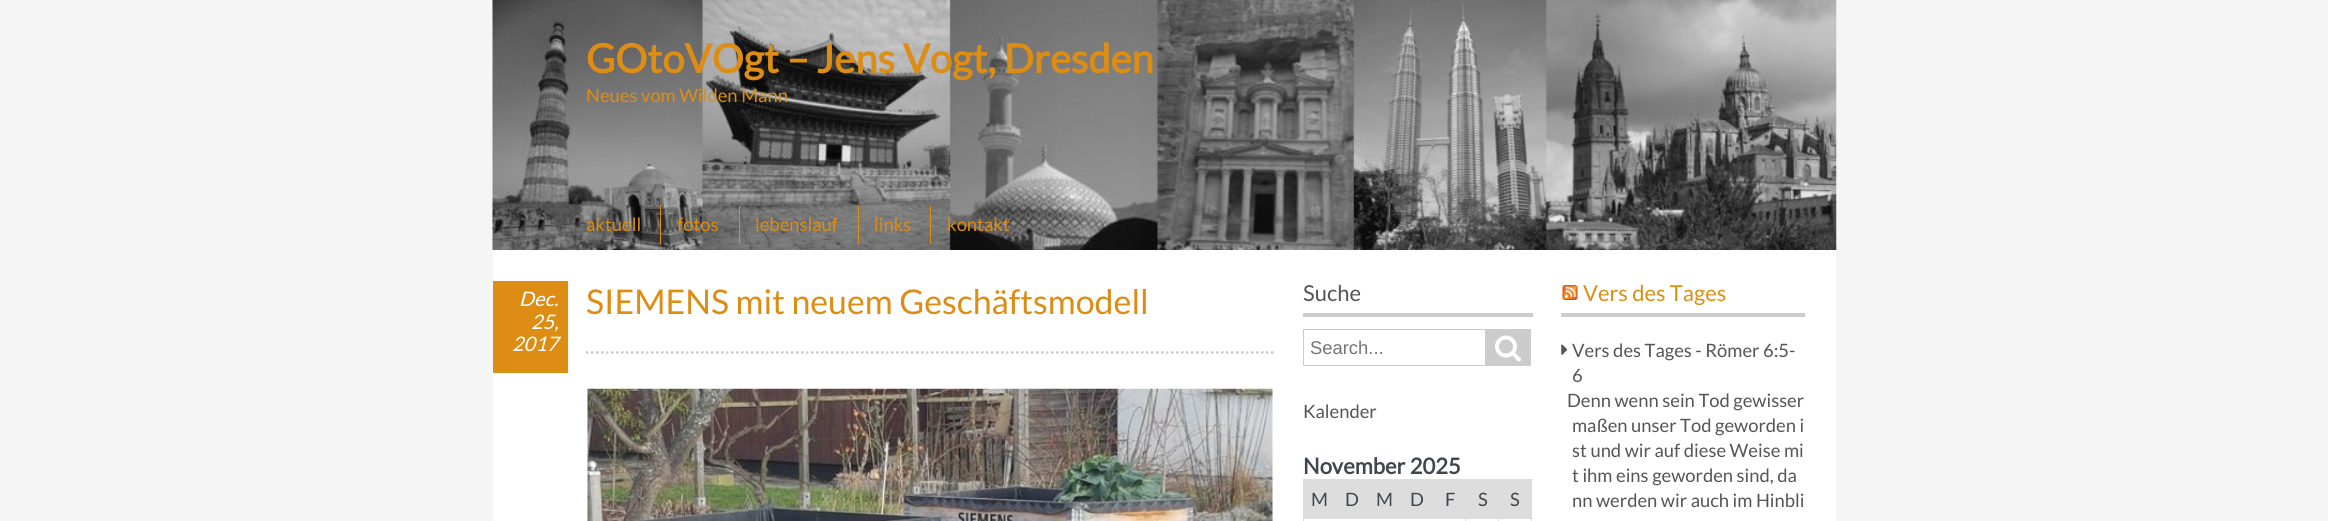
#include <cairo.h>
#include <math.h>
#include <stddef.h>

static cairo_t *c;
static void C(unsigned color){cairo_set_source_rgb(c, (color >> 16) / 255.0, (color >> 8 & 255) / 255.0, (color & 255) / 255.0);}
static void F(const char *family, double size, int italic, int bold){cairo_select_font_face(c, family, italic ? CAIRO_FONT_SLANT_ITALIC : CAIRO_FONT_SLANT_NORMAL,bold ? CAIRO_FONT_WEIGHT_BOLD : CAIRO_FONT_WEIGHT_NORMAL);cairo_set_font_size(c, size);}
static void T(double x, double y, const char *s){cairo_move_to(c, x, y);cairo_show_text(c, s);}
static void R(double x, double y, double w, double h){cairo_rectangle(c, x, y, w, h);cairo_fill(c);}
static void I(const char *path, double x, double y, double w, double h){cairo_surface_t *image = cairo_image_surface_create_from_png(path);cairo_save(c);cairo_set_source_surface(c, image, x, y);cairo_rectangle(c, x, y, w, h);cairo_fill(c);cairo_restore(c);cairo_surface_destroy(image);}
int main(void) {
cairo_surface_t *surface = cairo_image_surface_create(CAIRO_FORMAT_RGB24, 2328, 521);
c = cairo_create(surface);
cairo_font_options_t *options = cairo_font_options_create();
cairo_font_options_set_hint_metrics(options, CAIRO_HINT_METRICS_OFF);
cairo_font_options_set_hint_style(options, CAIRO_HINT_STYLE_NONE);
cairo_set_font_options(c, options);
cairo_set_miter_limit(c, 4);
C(0xf5f5f5);
cairo_paint(c);
C(0xffffff);
R(493,250,1343,271);
I("1.png",492,0,1345,250);
F("Lato",40,0,1);
C(0xdd8d13);
T(586,73,"GOtoVOgt – Jens Vogt, Dresden");
F("Lato",18.4,0,0);
T(586,102,"Neues vom Wilden Mann");
T(586,231,"aktuell");
R(660,206,1,38);
T(677,231,"fotos");
R(739,206,1,38);
T(755,231,"lebenslauf");
R(858,206,1,38);
T(874,231,"links");
R(930,206,1,38);
T(947,231,"kontakt");
R(493,281,75,92);
F("Lato",20,1,0);
C(0xffffff);
T(519,306,"Dec.");
T(531,329,"25,");
T(512,351,"2017");
cairo_new_path(c);
cairo_move_to(c,586,352.5);
cairo_line_to(c,1274,352.5);
C(0xcccccc);
cairo_set_line_width(c,2.5);
cairo_set_dash(c,(double[]){2.5,2.5},2,0);
cairo_stroke(c);
F("Lato",34,0,0);
C(0xdd8d13);
T(586,314,"SIEMENS mit neuem Geschäftsmodell");
I("2.png",587,388,686,133);
C(0xcccccc);
R(1303,313,230,4);
F("Lato",22,0,0);
C(0x555555);
T(1303,301,"Suche");
cairo_rectangle(c,1303.5,329.5,182,36);
C(0xcccccc);
cairo_set_line_width(c,1);
cairo_set_dash(c,NULL,0,0);
cairo_stroke(c);
F("Liberation Sans",18.4,0,0);
C(0x757575);
T(1310,354,"Search...");
C(0xcccccc);
R(1486,329,45,37);
I("3.png",1495,335,26,27);
F("Lato",18.4,0,0);
C(0x555555);
T(1303,418,"Kalender");
F("Lato",22,0,1);
C(0x40464d);
T(1303,474,"November 2025");
C(0xdddddd);
R(1304,480,227,38);
R(1303,479,230,1);
R(1531,518,1,3);
R(1531,479,1,40);
R(1465,518,1,3);
R(1303,518,1,3);
R(1498,518,1,3);
R(1303,518,230,1);
R(1303,479,1,40);
F("Lato",18.4,0,0);
C(0x40464d);
T(1311,506,"M");
T(1345,506,"D");
T(1376,506,"M");
T(1410,506,"D");
T(1445,506,"F");
T(1478,506,"S");
T(1510,506,"S");
C(0xcccccc);
R(1561,313,244,4);
I("4.png",1562,285,16,15);
F("Lato",22,0,0);
C(0xdd8d13);
T(1583,301,"Vers des Tages");
I("5.png",1561,344,7,11);
F("Lato",18.4,0,0);
C(0x555555);
T(1572,357,"Vers des Tages - Römer 6:5-");
T(1572,382,"6");
T(1567,407,"Denn wenn sein Tod gewisser");
T(1572,432,"maßen unser Tod geworden i");
T(1572,457,"st und wir auf diese Weise mi");
T(1572,482,"t ihm eins geworden sind, da");
T(1572,507,"nn werden wir auch im Hinbli");
cairo_surface_write_to_png(surface, "o.png");
cairo_font_options_destroy(options);
cairo_destroy(c);
cairo_surface_destroy(surface);
return 0;
}
